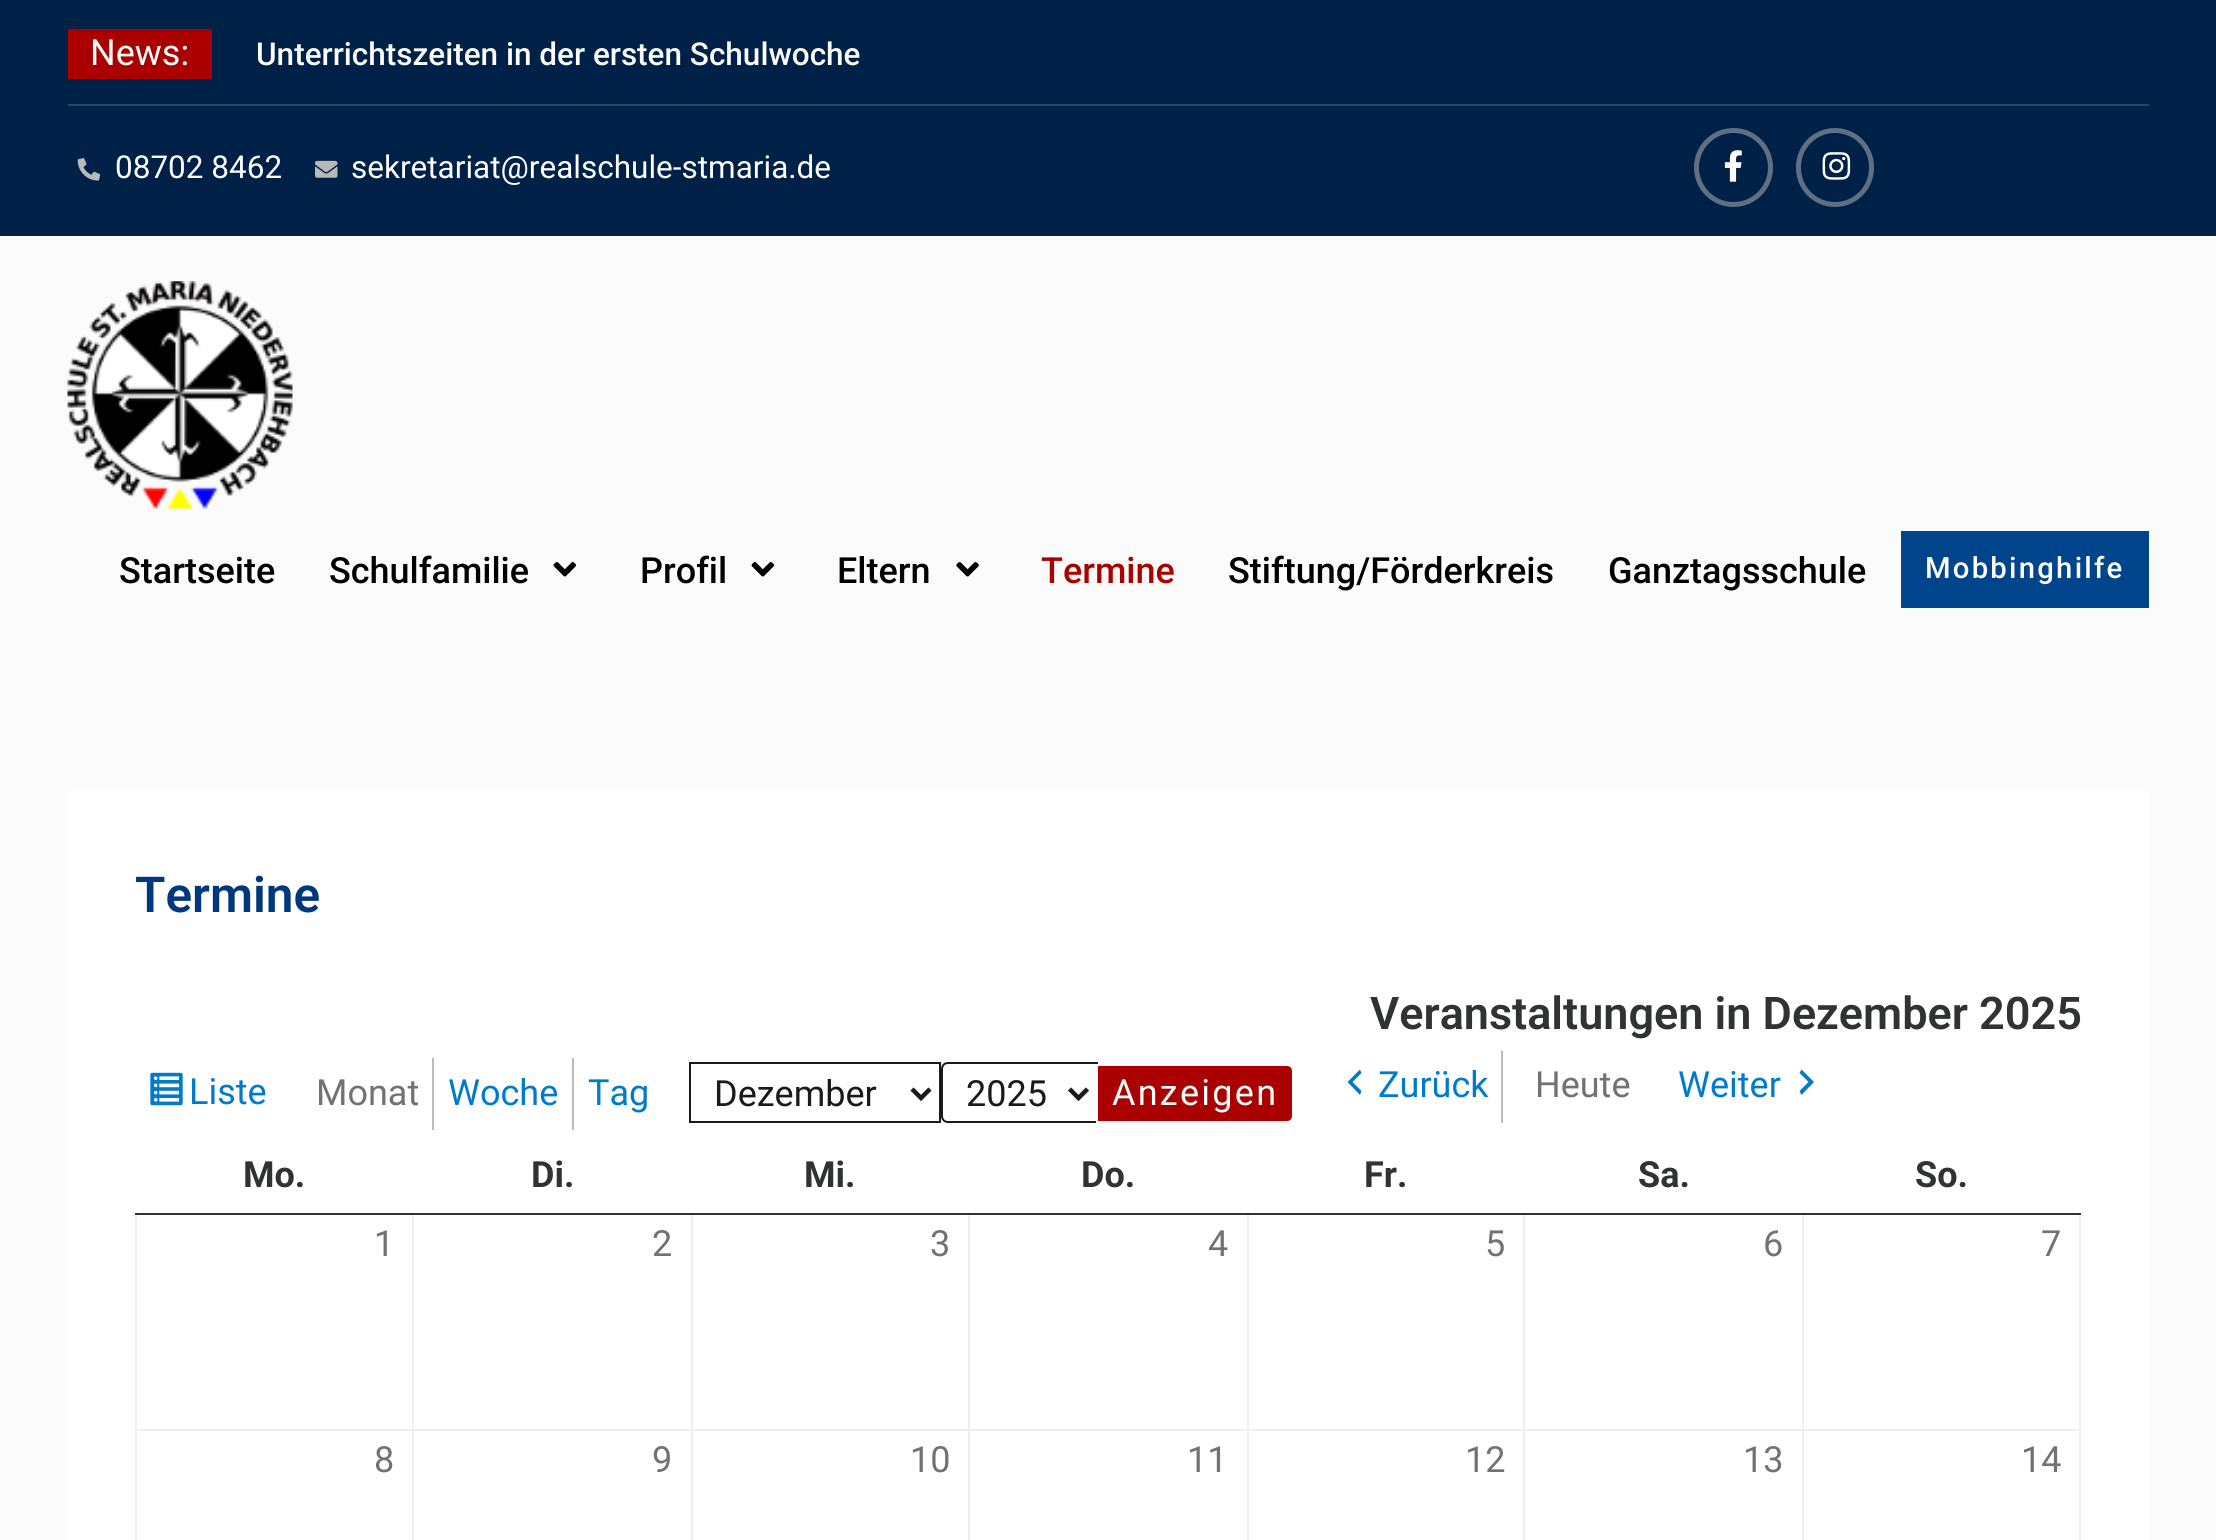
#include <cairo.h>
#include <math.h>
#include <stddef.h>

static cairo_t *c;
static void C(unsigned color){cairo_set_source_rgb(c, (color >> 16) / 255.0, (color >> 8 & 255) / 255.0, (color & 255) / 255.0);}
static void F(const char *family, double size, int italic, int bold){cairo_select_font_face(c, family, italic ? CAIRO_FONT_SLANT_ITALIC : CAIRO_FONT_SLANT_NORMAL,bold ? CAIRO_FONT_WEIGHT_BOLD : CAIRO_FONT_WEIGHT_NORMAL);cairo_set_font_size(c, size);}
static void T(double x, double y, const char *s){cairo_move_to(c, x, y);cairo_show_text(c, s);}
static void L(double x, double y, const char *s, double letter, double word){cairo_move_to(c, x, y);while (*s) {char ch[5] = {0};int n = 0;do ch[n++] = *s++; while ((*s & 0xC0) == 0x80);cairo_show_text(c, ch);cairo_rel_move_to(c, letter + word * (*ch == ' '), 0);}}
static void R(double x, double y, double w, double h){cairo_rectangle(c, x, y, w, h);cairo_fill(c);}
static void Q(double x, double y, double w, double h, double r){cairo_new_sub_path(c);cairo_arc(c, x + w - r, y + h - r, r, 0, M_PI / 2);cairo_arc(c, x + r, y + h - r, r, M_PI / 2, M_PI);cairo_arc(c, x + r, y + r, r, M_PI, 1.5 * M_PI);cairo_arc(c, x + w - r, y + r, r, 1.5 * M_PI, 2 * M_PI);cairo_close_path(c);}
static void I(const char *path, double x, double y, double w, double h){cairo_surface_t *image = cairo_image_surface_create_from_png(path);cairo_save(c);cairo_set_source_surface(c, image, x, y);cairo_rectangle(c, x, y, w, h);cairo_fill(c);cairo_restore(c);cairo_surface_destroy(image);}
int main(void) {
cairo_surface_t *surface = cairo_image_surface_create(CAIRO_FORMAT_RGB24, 2216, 1540);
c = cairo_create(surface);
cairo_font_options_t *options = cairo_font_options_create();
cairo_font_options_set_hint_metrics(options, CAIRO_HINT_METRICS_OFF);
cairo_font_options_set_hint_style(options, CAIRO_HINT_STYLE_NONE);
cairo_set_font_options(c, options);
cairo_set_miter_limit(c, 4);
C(0xfbfbfb);
cairo_paint(c);
C(0x002147);
R(0,0,2216,236);
C(0x2b4666);
R(68,104,2081,2);
C(0xaa0000);
R(68,29,144,50);
F("Roboto",36,0,0);
C(0xfdfdfd);
T(90,65,"News:");
F("Roboto Medium",31.5,0,0);
T(256,65,"Unterrichtszeiten in der ersten Schulwoche");
I("1.png",77,158,24,23);
F("Roboto",31.5,0,0);
T(115,178,"08702 8462");
I("2.png",315,160,23,18);
T(351,178,"sekretariat@realschule-stmaria.de");
cairo_new_path(c);
cairo_arc(c,1733.5,167.5,37,0,2 * M_PI);
C(0x607082);
cairo_set_line_width(c,5);
cairo_stroke(c);
I("3.png",1724,150,18,32);
Q(1798.5,130.5,73,74,36.5);
cairo_stroke(c);
I("4.png",1822,152,29,28);
I("5.png",67,281,226,228);
F("Roboto Medium",36,0,0);
C(0x000000);
T(119,583,"Startseite");
T(329,583,"Schulfamilie");
I("6.png",553,562,24,15);
T(640,583,"Profil");
I("6.png",751,562,24,15);
T(837,583,"Eltern");
I("7.png",956,562,23,15);
C(0xaa0000);
T(1041,583,"Termine");
C(0x000000);
T(1228,583,"Stiftung/Förderkreis");
T(1608,583,"Ganztagsschule");
C(0x00448b);
R(1901,531,248,77);
F("Roboto Medium",29.25,0,0);
C(0xfdfdfd);
L(1925,578,"Mobbinghilfe",2.25,0);
C(0xffffff);
R(68,790,2081,750);
F("Roboto SemiBold",49.5,0,0);
C(0x00387d);
T(135,912,"Termine");
F("Roboto SemiBold",45,0,0);
C(0x313233);
T(1370,1029,"Veranstaltungen in Dezember 2025");
I("8.png",150,1072,33,34);
F("Roboto",36,0,0);
C(0x007acc);
T(189,1104,"Liste");
C(0xbbbbbb);
R(432,1058,2,72);
C(0x727272);
T(316,1105,"Monat");
C(0xbbbbbb);
R(572,1058,2,72);
C(0x007acc);
T(448,1105,"Woche");
T(588,1105,"Tag");
cairo_rectangle(c,690,1063,250,59);
C(0x1a1a1a);
cairo_set_line_width(c,2);
cairo_stroke(c);
cairo_new_path(c);
cairo_move_to(c,912,1089);
cairo_line_to(c,921,1098);
cairo_line_to(c,930,1089);
cairo_set_line_width(c,4.5);
cairo_stroke(c);
T(714,1106,"Dezember");
cairo_new_path(c);
cairo_move_to(c,948,1063);
cairo_line_to(c,1097,1063);
cairo_line_to(c,1097,1122);
cairo_line_to(c,948,1122);
cairo_curve_to(c,944.5,1122,942,1119.5,942,1116);
cairo_line_to(c,942,1069);
cairo_curve_to(c,942,1065.5,944.5,1063,948,1063);
cairo_close_path(c);
cairo_set_line_width(c,2);
cairo_stroke(c);
cairo_new_path(c);
cairo_move_to(c,1069.5,1089);
cairo_line_to(c,1078.5,1098);
cairo_line_to(c,1087.5,1089);
cairo_set_line_width(c,4.5);
cairo_stroke(c);
T(966,1106,"2025");
C(0xaa0000);
cairo_new_path(c);
cairo_move_to(c,1097,1065);
cairo_line_to(c,1287,1065);
cairo_curve_to(c,1290.5,1065,1293,1067.5,1293,1071);
cairo_line_to(c,1293,1116);
cairo_curve_to(c,1293,1119.5,1290.5,1122,1287,1122);
cairo_line_to(c,1097,1122);
cairo_close_path(c);
cairo_fill_preserve(c);
C(0xffffff);
cairo_set_line_width(c,2);
cairo_stroke(c);
C(0xfdfdfd);
L(1112,1105,"Anzeigen",2.25,0);
C(0xbbbbbb);
R(1501,1051,2,72);
C(0x007acc);
cairo_new_path(c);
cairo_move_to(c,1361.5,1073);
cairo_line_to(c,1352.5,1082);
cairo_line_to(c,1361.5,1091);
cairo_line_to(c,1360,1095);
cairo_line_to(c,1347.5,1082);
cairo_line_to(c,1360,1069.5);
cairo_close_path(c);
cairo_fill(c);
T(1378,1097,"Zurück");
C(0x727272);
T(1535,1097,"Heute");
C(0x007acc);
T(1678,1097,"Weiter");
cairo_new_path(c);
cairo_move_to(c,1799.5,1091);
cairo_line_to(c,1808.5,1082);
cairo_line_to(c,1799.5,1073);
cairo_line_to(c,1801.5,1069.5);
cairo_line_to(c,1814,1082);
cairo_line_to(c,1801.5,1095);
cairo_close_path(c);
cairo_fill(c);
F("Roboto",36,0,1);
C(0x313233);
T(243,1187,"Mo.");
T(531,1187,"Di.");
T(804,1187,"Mi.");
T(1081,1187,"Do.");
T(1364,1187,"Fr.");
T(1638,1187,"Sa.");
C(0xefefef);
R(1802,1429,279,2);
R(1802,1429,2,111);
R(1523,1429,282,2);
R(1523,1429,2,111);
R(1247,1429,279,2);
R(1247,1429,2,111);
R(968,1429,281,2);
R(968,1429,2,111);
R(691,1429,279,2);
R(691,1429,2,111);
R(412,1429,281,2);
R(412,1429,2,111);
R(135,1429,279,2);
R(412,1213,2,218);
R(691,1213,2,218);
R(968,1213,2,218);
R(1247,1213,2,218);
R(1523,1213,2,218);
R(1802,1213,2,218);
R(135,1213,2,327);
R(2079,1213,2,327);
C(0x313233);
R(135,1213,1946,2);
T(1915,1187,"So.");
F("Roboto",36,0,0);
C(0x727272);
T(374,1256,"1");
T(652,1256,"2");
T(930,1256,"3");
T(1208,1256,"4");
T(1485,1256,"5");
T(1763,1256,"6");
T(2041,1256,"7");
T(374,1472,"8");
T(652,1472,"9");
T(910,1472,"10");
T(1187,1472,"11");
T(1465,1472,"12");
T(1743,1472,"13");
T(2021,1472,"14");
cairo_surface_write_to_png(surface, "o.png");
cairo_font_options_destroy(options);
cairo_destroy(c);
cairo_surface_destroy(surface);
return 0;
}
